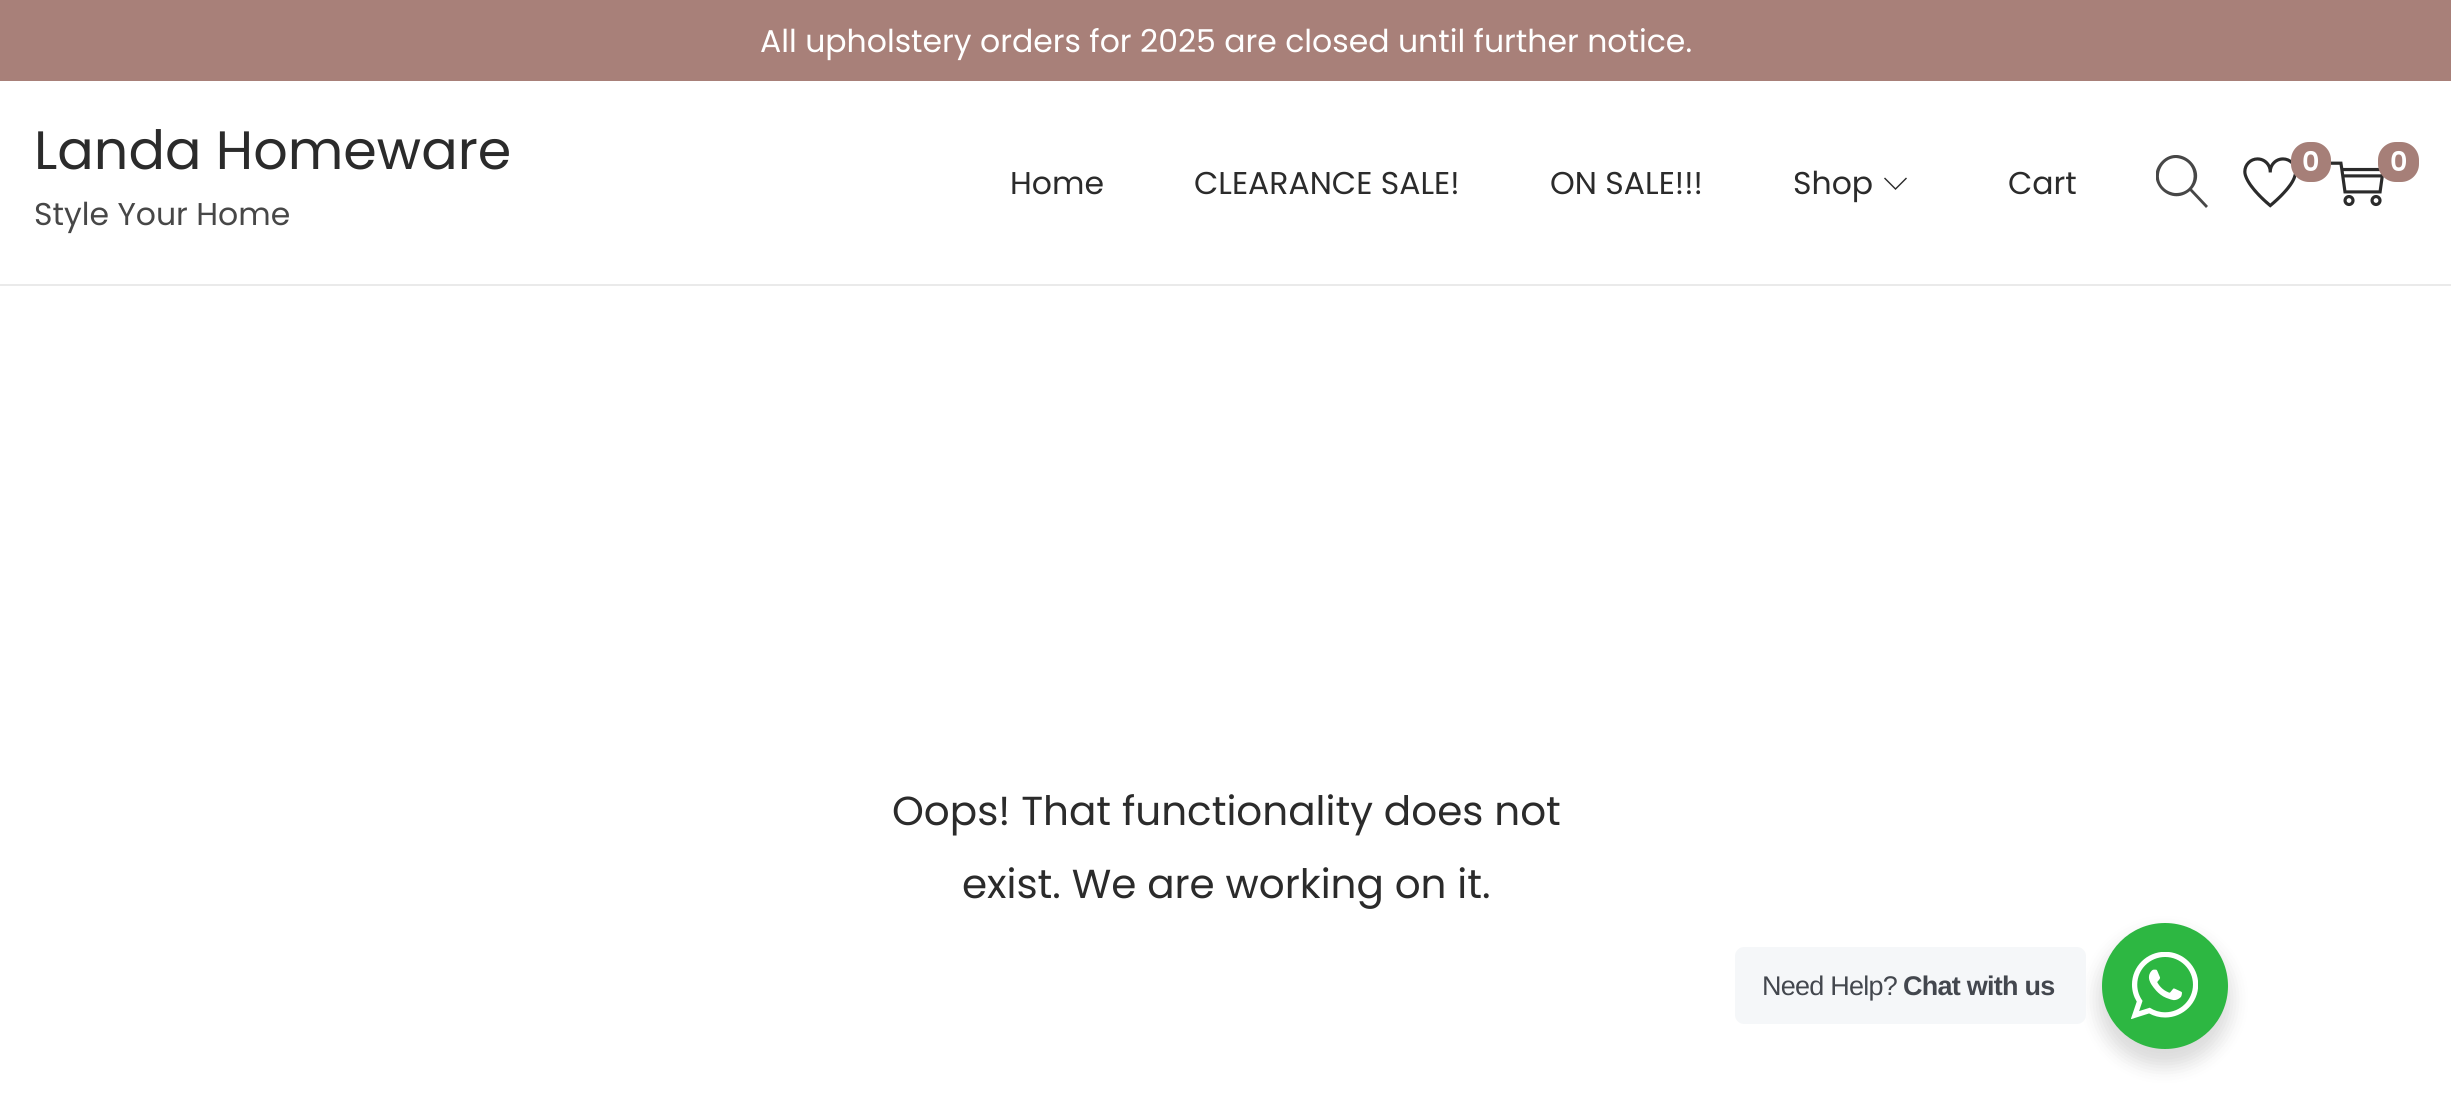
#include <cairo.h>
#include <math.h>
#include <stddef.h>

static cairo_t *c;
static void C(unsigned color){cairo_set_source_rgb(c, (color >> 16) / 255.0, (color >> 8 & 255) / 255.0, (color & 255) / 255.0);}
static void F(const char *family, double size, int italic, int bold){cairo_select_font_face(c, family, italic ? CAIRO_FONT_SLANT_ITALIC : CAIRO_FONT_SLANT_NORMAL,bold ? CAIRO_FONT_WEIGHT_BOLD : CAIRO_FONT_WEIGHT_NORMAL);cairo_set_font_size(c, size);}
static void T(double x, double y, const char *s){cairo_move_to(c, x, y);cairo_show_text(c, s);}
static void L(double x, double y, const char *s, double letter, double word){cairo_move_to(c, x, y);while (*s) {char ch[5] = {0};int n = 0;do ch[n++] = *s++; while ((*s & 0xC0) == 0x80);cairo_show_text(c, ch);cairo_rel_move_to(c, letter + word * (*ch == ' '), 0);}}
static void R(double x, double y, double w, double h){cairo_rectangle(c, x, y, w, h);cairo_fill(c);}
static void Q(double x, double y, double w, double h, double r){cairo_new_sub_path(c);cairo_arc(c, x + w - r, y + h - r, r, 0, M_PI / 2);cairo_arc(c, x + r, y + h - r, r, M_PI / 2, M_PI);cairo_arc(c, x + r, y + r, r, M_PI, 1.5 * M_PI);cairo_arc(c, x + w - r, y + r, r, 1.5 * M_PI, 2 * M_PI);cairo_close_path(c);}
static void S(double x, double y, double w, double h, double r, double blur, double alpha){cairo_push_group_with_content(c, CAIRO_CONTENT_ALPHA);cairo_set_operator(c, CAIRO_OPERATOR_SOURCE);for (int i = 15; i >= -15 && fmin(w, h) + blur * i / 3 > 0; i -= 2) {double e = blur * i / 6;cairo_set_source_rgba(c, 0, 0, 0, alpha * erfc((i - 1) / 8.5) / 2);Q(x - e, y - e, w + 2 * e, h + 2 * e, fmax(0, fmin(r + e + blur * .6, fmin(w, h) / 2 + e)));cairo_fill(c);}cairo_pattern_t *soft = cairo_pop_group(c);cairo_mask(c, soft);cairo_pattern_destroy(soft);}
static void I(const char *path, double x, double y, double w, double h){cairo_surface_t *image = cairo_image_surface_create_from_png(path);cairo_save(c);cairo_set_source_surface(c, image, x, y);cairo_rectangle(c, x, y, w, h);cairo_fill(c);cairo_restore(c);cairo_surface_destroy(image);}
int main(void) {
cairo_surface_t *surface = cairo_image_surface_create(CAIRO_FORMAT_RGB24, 2451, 1107);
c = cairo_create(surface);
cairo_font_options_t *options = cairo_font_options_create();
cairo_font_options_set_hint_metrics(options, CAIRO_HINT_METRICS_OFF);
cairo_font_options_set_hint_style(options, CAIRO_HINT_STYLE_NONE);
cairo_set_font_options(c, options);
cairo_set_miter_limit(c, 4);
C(0xffffff);
cairo_paint(c);
C(0xa88079);
R(0,0,2451,81);
F("Poppins",31.5,0,0);
C(0xffffff);
T(760,52,"All upholstery orders for 2025 are closed until further notice.");
C(0xeaeaea);
R(0,284,2451,2);
F("Poppins",54,0,0);
C(0x2b2b2b);
T(34,169,"Landa Homeware");
F("Poppins",31.5,0,0);
C(0x474747);
T(34,225,"Style Your Home");
cairo_save(c);
cairo_rectangle(c,2156,155,54,54);
cairo_clip(c);
cairo_new_path(c);
cairo_move_to(c,2208,206);
cairo_line_to(c,2192,189);
cairo_curve_to(c,2209,169,2180,143,2162,161);
cairo_curve_to(c,2143,180,2170,208,2190,191);
cairo_line_to(c,2206,208);
cairo_close_path(c);
cairo_move_to(c,2176,193);
cairo_curve_to(c,2172,193,2167,191,2164,188);
cairo_curve_to(c,2153,178,2161,158,2176,158);
cairo_curve_to(c,2200,160,2199,193,2176,193);
cairo_close_path(c);
cairo_fill(c);
cairo_restore(c);
I("1.png",2243,157,54,51);
C(0xa67f78);
Q(2291,142,40,40,18);
cairo_fill(c);
F("Poppins SemiBold",27,0,0);
C(0xffffff);
T(2302,171,"0");
I("2.png",2331,161,53,46);
C(0xa67f78);
Q(2378,142,41,40,18);
cairo_fill(c);
C(0xffffff);
T(2390,171,"0");
F("Poppins",31.5,0,0);
C(0x2b2b2b);
T(1010,194,"Home");
T(1194,194,"CLEARANCE SALE!");
T(1550,194,"ON SALE!!!");
T(1793,194,"Shop");
cairo_new_path(c);
cairo_move_to(c,1907,178.5);
cairo_line_to(c,1895.5,190);
cairo_line_to(c,1884,178.5);
cairo_line_to(c,1885,177.5);
cairo_line_to(c,1895.5,188);
cairo_line_to(c,1906,177.5);
cairo_close_path(c);
cairo_fill(c);
T(2008,194,"Cart");
F("Poppins",40.5,0,0);
T(892,825,"Oops! That functionality does not");
T(962,898,"exist. We are working on it.");
C(0x000000);
S(2097,932,135,135,67.5,9,.14);
C(0xf5f7f9);
Q(1735,947,351,77,9);
cairo_fill(c);
F("Liberation Sans",27,0,0);
C(0x43474e);
L(1762,995,"Need Help?",-.75,0);
F("Liberation Sans",27,0,1);
L(1903,995,"Chat with us",-.75,0);
C(0x2db742);
cairo_new_path(c);
cairo_arc(c,2165,986,63,0,2 * M_PI);
cairo_fill(c);
I("3.png",2131,952,67,67);
cairo_surface_write_to_png(surface, "o.png");
cairo_font_options_destroy(options);
cairo_destroy(c);
cairo_surface_destroy(surface);
return 0;
}
